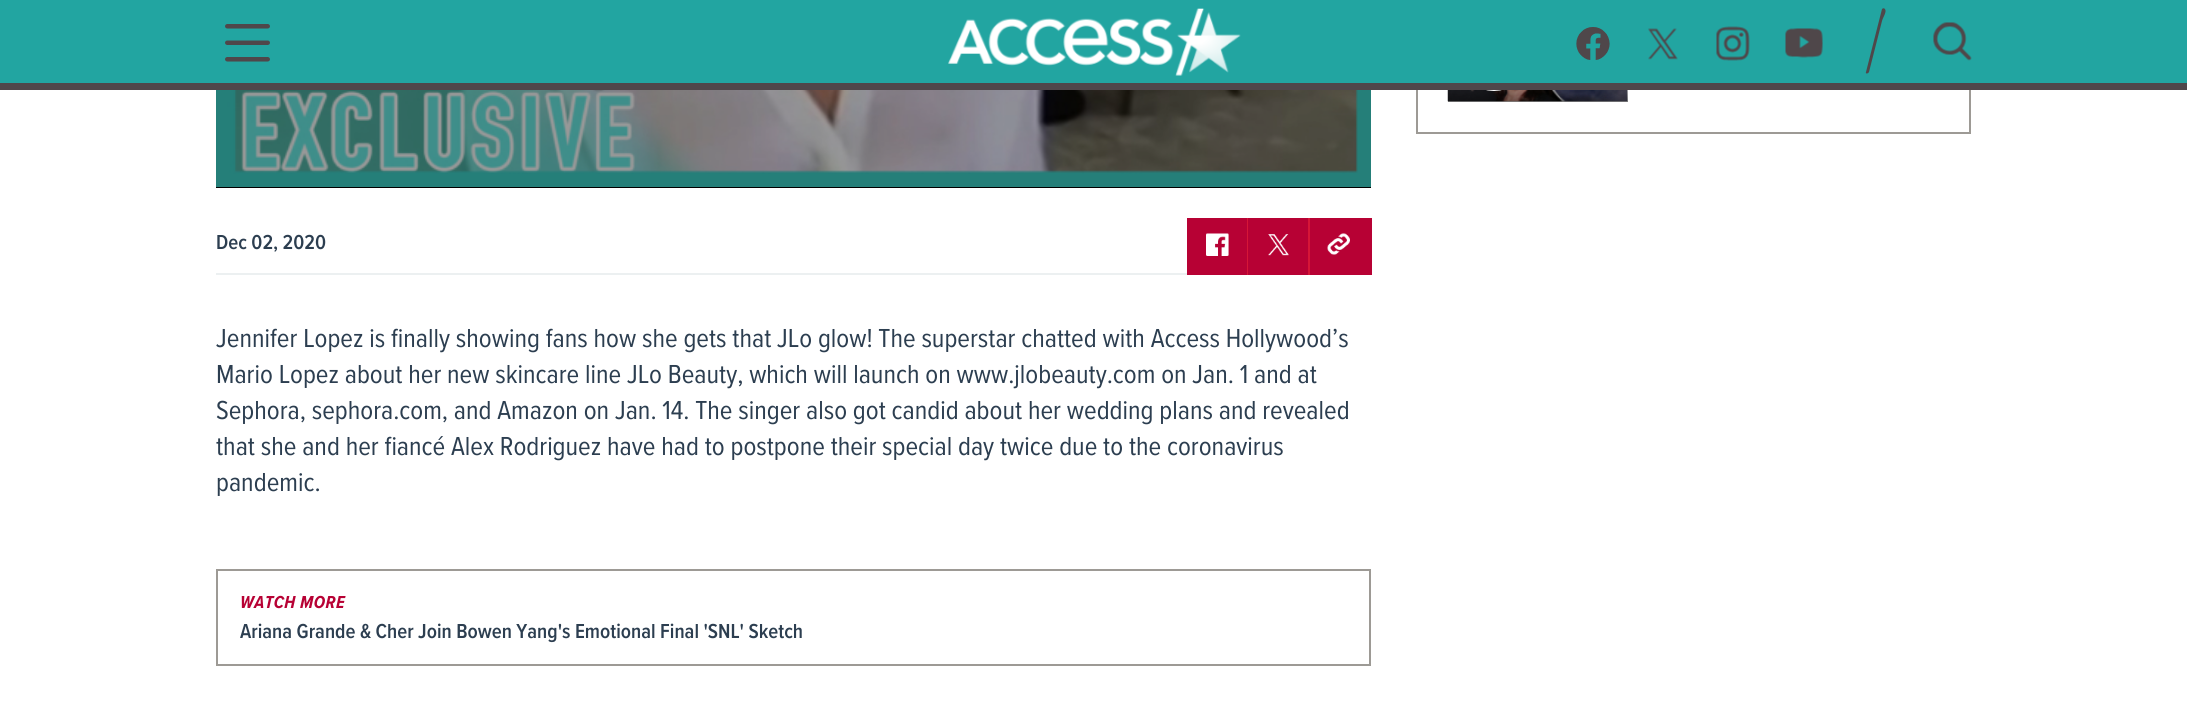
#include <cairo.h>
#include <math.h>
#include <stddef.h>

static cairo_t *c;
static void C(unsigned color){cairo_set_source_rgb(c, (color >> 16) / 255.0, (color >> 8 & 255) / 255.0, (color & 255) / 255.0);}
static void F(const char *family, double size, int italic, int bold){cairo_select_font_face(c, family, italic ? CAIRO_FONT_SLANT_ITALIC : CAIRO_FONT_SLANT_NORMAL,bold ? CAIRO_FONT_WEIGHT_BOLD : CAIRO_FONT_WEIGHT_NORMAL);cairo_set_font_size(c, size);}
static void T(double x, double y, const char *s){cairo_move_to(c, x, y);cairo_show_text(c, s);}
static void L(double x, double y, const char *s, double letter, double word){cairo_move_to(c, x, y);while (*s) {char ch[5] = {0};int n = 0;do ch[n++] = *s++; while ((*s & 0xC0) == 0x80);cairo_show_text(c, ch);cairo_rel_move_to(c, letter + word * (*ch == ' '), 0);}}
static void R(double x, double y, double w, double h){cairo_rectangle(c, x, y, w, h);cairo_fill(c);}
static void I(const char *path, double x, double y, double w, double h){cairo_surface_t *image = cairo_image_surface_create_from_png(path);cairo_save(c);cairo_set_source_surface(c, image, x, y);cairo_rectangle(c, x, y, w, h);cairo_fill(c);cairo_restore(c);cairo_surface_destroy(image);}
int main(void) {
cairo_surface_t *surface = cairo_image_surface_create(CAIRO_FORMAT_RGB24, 2187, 702);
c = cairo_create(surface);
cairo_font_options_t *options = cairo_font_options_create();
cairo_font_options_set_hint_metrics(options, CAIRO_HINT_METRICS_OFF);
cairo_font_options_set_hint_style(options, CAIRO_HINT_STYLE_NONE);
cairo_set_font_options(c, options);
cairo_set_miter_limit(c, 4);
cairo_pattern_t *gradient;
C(0xffffff);
cairo_paint(c);
cairo_rectangle(c,1417,-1,553,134);
C(0x9d9a95);
cairo_stroke(c);
C(0x22a5a1);
R(0,0,2187,83);
I("1.png",225,24,45,38);
I("2.png",948,8,293,68);
I("3.png",1576,27,34,33);
I("4.png",1648,28,30,32);
I("5.png",1716,26,34,35);
I("6.png",1785,28,38,30);
C(0x4f474a);
cairo_new_path(c);
cairo_move_to(c,1866,72);
cairo_line_to(c,1882,9);
cairo_curve_to(c,1883,8,1884,8,1885,9);
cairo_curve_to(c,1887,12,1883,17,1882,21);
cairo_line_to(c,1869,72);
cairo_curve_to(c,1868,74,1865,74,1866,72);
cairo_close_path(c);
cairo_fill(c);
I("7.png",1933,22,39,39);
R(0,83,2187,7);
I("8.png",1447,90,181,12);
gradient = cairo_pattern_create_linear(1538,78,1538,102);
cairo_pattern_add_color_stop_rgba(gradient,0,0,0,0,0);
cairo_pattern_add_color_stop_rgba(gradient,1,0,0,0,.5);
cairo_set_source(c,gradient);
cairo_pattern_destroy(gradient);
R(1448,90,180,12);
I("9.png",1486,90,16,1);
C(0x000000);
R(216,187,1155,1);
I("10.png",216,90,1155,97);
C(0xecf0f1);
R(216,273,971,2);
F("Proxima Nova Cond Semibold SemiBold",21,0,0);
C(0x2c3e50);
T(216,249,"Dec 02, 2020");
C(0xb70134);
R(1187,218,60,57);
C(0xd61637);
R(1247,218,1,57);
I("11.png",1206,233,23,23);
C(0xb70134);
R(1248,218,60,57);
C(0xd61637);
R(1308,218,2,57);
I("12.png",1268,234,21,22);
C(0xb70134);
R(1310,218,62,57);
I("13.png",1327,233,23,22);
F("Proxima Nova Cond",27,0,0);
C(0x2c3e50);
T(216,347,"Jennifer Lopez is finally showing fans how she gets that JLo glow! The superstar chatted with Access Hollywood’s");
T(216,383,"Mario Lopez about her new skincare line JLo Beauty, which will launch on www.jlobeauty.com on Jan. 1 and at");
T(216,419,"Sephora, sephora.com, and Amazon on Jan. 14. The singer also got candid about her wedding plans and revealed");
T(216,455,"that she and her fiancé Alex Rodriguez have had to postpone their special day twice due to the coronavirus");
T(216,491,"pandemic.");
cairo_rectangle(c,217,570,1153,95);
C(0x9d9a95);
cairo_stroke(c);
F("Proxima Nova Cond",18,1,1);
C(0xb70134);
L(240,608,"WATCH MORE",.5,0);
F("Proxima Nova Cond Semibold SemiBold",21,0,0);
C(0x2c3e50);
T(240,638,"Ariana Grande & Cher Join Bowen Yang's Emotional Final 'SNL' Sketch");
cairo_surface_write_to_png(surface, "o.png");
cairo_font_options_destroy(options);
cairo_destroy(c);
cairo_surface_destroy(surface);
return 0;
}
